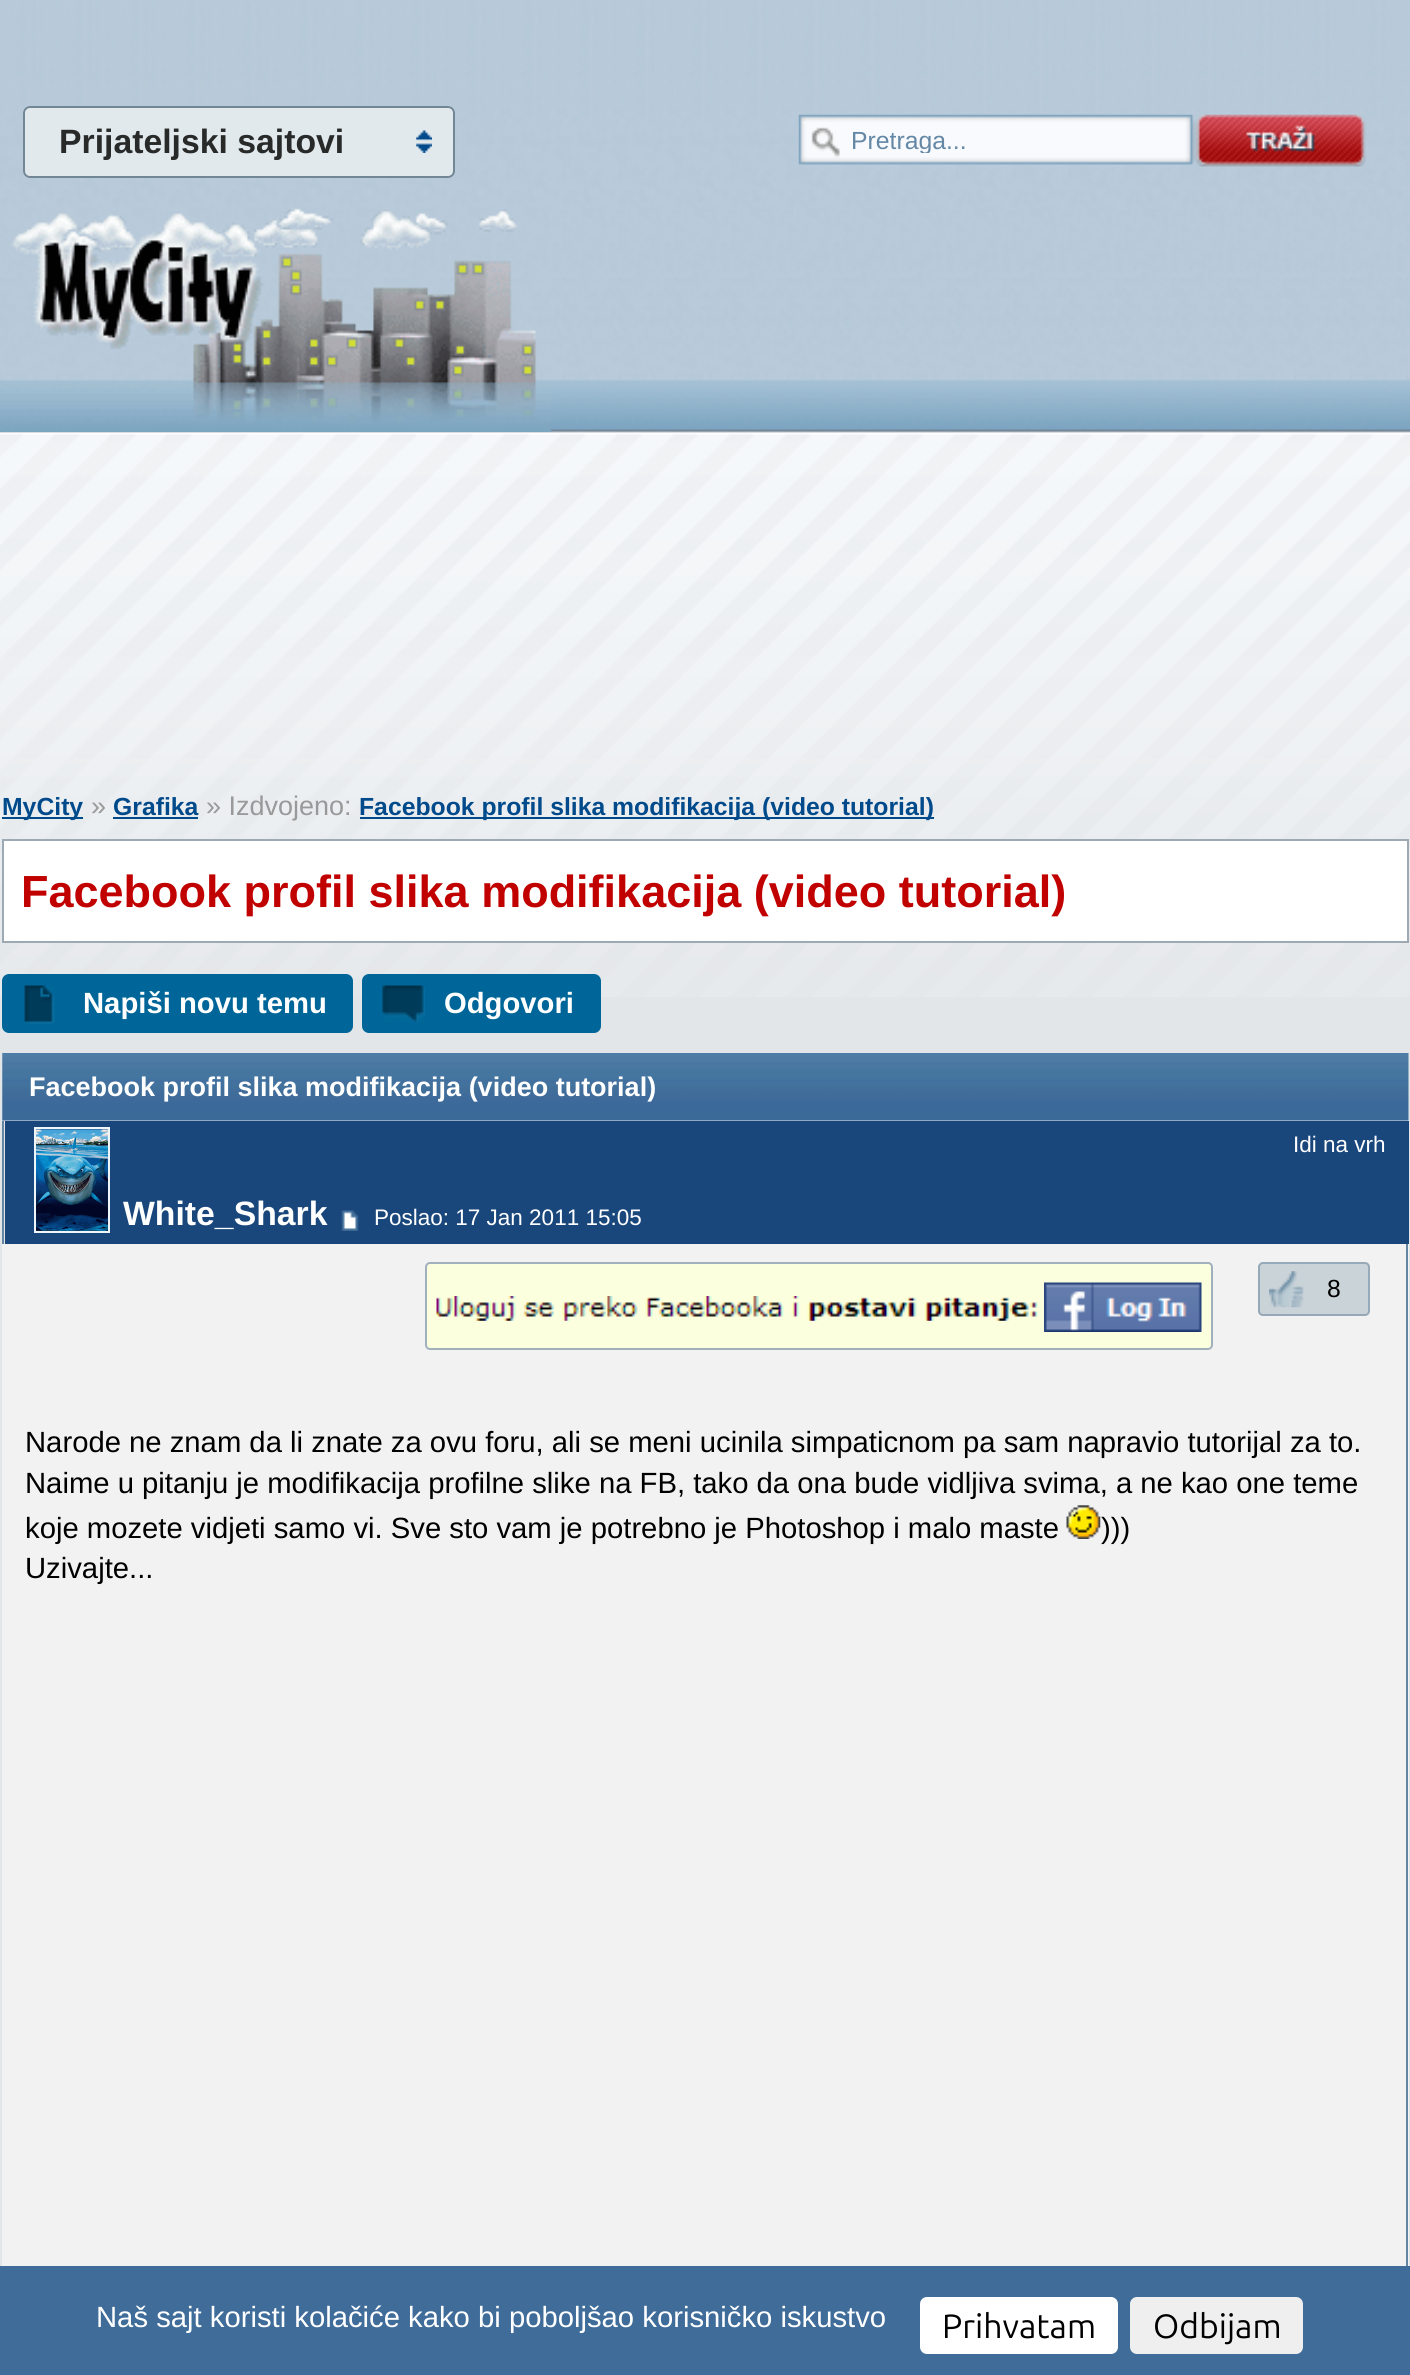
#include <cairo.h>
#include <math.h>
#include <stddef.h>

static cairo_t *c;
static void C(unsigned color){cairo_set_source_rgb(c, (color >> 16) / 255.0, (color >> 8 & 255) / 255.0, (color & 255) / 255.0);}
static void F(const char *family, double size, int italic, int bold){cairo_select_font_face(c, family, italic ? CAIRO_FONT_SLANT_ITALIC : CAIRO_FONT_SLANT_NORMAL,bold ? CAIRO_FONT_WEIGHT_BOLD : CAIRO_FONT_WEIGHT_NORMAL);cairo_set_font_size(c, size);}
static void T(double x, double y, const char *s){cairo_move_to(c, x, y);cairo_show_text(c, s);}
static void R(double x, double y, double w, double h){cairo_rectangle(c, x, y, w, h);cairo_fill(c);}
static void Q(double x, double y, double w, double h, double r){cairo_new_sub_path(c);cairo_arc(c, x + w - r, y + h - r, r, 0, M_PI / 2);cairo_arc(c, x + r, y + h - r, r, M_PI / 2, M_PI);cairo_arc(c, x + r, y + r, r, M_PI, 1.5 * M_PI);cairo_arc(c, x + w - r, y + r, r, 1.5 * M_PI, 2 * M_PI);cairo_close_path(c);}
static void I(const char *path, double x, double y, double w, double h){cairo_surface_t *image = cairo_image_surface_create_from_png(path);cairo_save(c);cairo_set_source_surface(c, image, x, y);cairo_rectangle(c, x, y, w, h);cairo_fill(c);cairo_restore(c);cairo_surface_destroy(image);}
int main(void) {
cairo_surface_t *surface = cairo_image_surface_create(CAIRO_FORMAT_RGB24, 1410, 2375);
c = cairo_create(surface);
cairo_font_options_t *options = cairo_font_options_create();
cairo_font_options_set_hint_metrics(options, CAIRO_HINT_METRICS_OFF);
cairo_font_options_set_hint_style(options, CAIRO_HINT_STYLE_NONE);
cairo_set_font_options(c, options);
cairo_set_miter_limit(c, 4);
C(0xe2e6e8);
cairo_paint(c);
I("1.png",0,0,1410,997);
C(0xe2e9ed);
Q(23,106,432,72,7);
cairo_fill(c);
I("2.png",416,130,16,23);
Q(24,107,430,70,6);
C(0x728796);
cairo_stroke(c);
F("Liberation Sans",33.75,0,1);
C(0x282929);
T(59,153,"Prijateljski sajtovi");
I("3.png",798,114,397,51);
cairo_save(c);
cairo_rectangle(c,851,126,319,27);
cairo_clip(c);
F("Liberation Sans",24.75,0,0);
C(0x6387a5);
T(851,149,"Pretraga...");
cairo_restore(c);
I("4.png",1195,114,171,53);
I("5.png",0,208,552,224);
C(0x004a8b);
R(2,817,81,2);
F("Liberation Sans",24.75,0,1);
T(2,815,"MyCity");
F("Liberation Sans",27,0,0);
C(0x999999);
T(91,815,"»");
F("Liberation Sans",24.75,0,1);
C(0x004a8b);
T(113,815,"Grafika");
R(113,817,85,2);
F("Liberation Sans",27,0,0);
C(0x999999);
T(206,815,"» Izdvojeno:");
C(0x004a8b);
R(360,817,574,2);
F("Liberation Sans",24.75,0,1);
T(359,815,"Facebook profil slika modifikacija (video tutorial)");
C(0xffffff);
cairo_rectangle(c,3,840,1405,102);
cairo_fill_preserve(c);
C(0x9daab3);
cairo_stroke(c);
F("Liberation Sans",45,0,1);
C(0xc10000);
T(21,907,"Facebook profil slika modifikacija (video tutorial)");
C(0x006699);
Q(2,974,351,59,7);
cairo_fill(c);
I("6.png",24,985,31,39);
F("Liberation Sans",29.25,0,1);
C(0xffffff);
T(83,1013,"Napiši novu temu");
C(0x006699);
Q(362,974,239,59,7);
cairo_fill(c);
I("7.png",382,985,43,37);
C(0xffffff);
T(444,1013,"Odgovori");
I("8.png",2,1053,1407,68);
F("Liberation Sans",27,0,1);
T(29,1096,"Facebook profil slika modifikacija (video tutorial)");
C(0x19477c);
R(5,1121,1404,123);
C(0x6286a4);
R(2,1121,2,123);
F("Liberation Sans",22.5,0,0);
C(0xffffff);
T(1293,1152,"Idi na vrh");
cairo_rectangle(c,35,1128,74,104);
C(0xeff6fa);
cairo_stroke(c);
I("9.png",36,1129,72,102);
F("Liberation Sans",33.75,0,1);
C(0xffffff);
T(123,1225,"White_Shark");
I("10.png",341,1210,18,21);
F("Liberation Sans",22.5,0,0);
T(374,1225,"Poslao: 17 Jan 2011 15:05");
C(0xf2f2f2);
R(2,1244,1407,1022);
C(0x6286a4);
R(1406,1244,2,1022);
C(0xfcffde);
Q(426,1263,786,86,4);
cairo_fill_preserve(c);
C(0xa0b0bd);
cairo_stroke(c);
I("11.png",436,1296,602,25);
I("12.png",1044,1282,158,50);
C(0xcad3d8);
Q(1259,1263,110,52,4);
cairo_fill_preserve(c);
C(0x95a9b9);
cairo_stroke(c);
I("13.png",1269,1271,35,37);
F("Liberation Sans",24.75,0,0);
C(0x000000);
T(1327,1297,"8");
F("Liberation Sans",29.25,0,0);
T(25,1452,"Narode ne znam da li znate za ovu foru, ali se meni ucinila simpaticnom pa sam napravio tutorijal za to.");
T(25,1493,"Naime u pitanju je modifikacija profilne slike na FB, tako da ona bude vidljiva svima, a ne kao one teme");
T(25,1538,"koje mozete vidjeti samo vi. Sve sto vam je potrebno je Photoshop i malo maste");
I("14.png",1066,1505,35,34);
T(1101,1538,")))");
T(25,1578,"Uzivajte...");
C(0x3f6c99);
R(0,2266,1410,109);
C(0xffffff);
T(96,2327,"Naš sajt koristi kolačiće kako bi poboljšao korisničko iskustvo");
Q(920,2297,198,57,7);
cairo_fill(c);
F("Ubuntu",33.75,0,0);
C(0x000000);
T(942,2338,"Prihvatam");
C(0xefefef);
Q(1130,2297,173,57,7);
cairo_fill(c);
C(0x000000);
T(1153,2338,"Odbijam");
cairo_surface_write_to_png(surface, "o.png");
cairo_font_options_destroy(options);
cairo_destroy(c);
cairo_surface_destroy(surface);
return 0;
}
